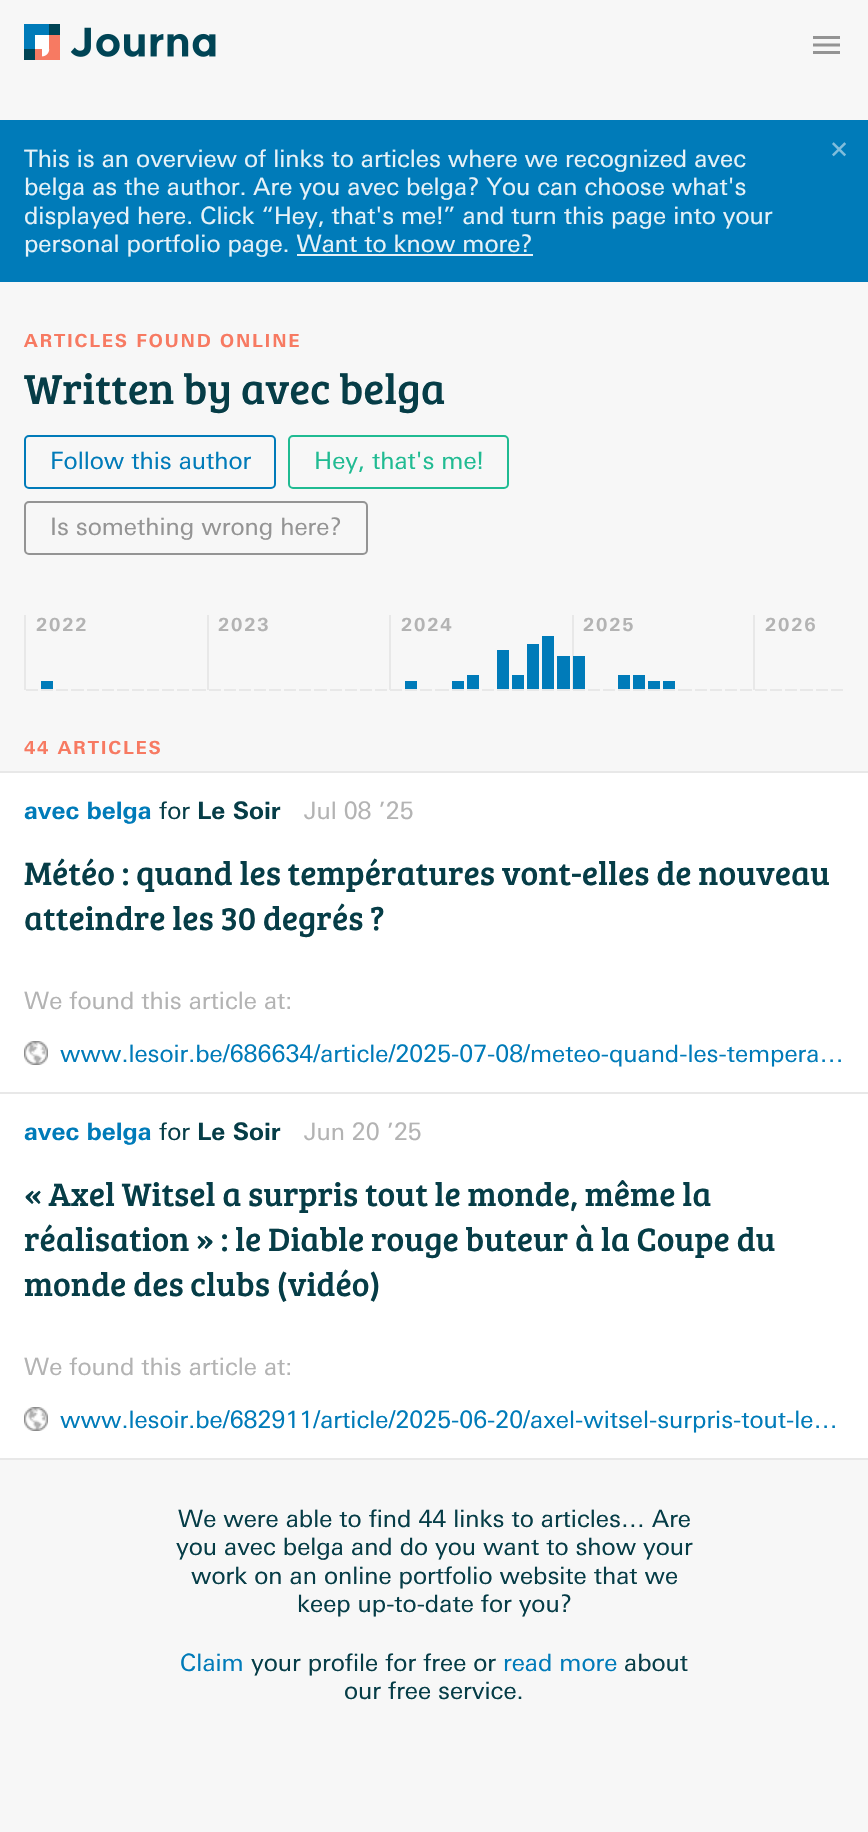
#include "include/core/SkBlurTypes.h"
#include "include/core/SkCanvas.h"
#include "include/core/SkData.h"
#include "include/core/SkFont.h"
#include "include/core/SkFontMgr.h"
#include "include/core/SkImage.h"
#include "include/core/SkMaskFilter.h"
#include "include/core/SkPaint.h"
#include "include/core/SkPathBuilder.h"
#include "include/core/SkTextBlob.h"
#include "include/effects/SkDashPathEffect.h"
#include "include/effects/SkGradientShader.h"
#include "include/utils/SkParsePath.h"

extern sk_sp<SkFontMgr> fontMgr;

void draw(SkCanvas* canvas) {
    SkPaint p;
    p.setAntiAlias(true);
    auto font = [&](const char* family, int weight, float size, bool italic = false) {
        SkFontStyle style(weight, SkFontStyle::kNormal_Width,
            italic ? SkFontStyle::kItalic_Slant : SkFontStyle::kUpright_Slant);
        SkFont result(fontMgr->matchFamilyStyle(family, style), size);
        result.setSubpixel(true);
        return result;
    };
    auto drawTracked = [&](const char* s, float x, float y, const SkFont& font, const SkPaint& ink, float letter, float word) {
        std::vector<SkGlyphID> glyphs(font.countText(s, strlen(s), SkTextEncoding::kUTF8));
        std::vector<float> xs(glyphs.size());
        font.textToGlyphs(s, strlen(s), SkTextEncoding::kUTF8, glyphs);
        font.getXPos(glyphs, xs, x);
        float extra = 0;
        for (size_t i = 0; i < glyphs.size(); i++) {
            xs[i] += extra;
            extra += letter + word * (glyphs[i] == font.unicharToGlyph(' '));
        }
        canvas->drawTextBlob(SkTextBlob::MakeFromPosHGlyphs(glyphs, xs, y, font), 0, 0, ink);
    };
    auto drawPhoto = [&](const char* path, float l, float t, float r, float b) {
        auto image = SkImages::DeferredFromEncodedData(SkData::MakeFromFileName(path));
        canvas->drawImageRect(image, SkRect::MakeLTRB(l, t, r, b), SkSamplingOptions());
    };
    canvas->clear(0xFFF7F7F7);
    drawPhoto("media/1.png", 24, 24, 216, 60);
    drawPhoto("media/2.png", 813, 36, 840, 54);
    p.setColor(0xFF007BB9);
    canvas->drawRect(SkRect::MakeLTRB(0, 120, 868, 282), p);
    auto font1 = font("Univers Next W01", 400, 24);
    p.setColor(0xFFE6F2F8);
    {
        const struct { const char* s; float x, y; } items[] = {
            {"This is an overview of links to articles where we recognized avec", 24, 167},
            {"belga as the author. Are you avec belga? You can choose what's", 24, 195},
            {"displayed here. Click “Hey, that's me!” and turn this page into your", 24, 224},
            {"personal portfolio page. Want to know more?", 24, 252},
        };
        for (auto [s, x, y] : items) {
            canvas->drawString(s, x, y, font1, p);
        }
    }
    canvas->drawRect(SkRect::MakeLTRB(297, 254, 533, 256), p);
    auto font2 = font("DejaVu Sans", 400, 24);
    p.setColor(0xFF80BDDC);
    canvas->drawString("✕", 829, 158, font2, p);
    auto font3 = font("Univers Next W01", 700, 18);
    p.setColor(0xFFF77A62);
    drawTracked("ARTICLES FOUND ONLINE", 24, 347, font3, p, 1.8f, 0);
    auto font4 = font("Bree Serif", 400, 43.25f);
    p.setColor(0xFF063D47);
    canvas->drawString("Written by avec belga", 24, 404, font4, p);
    p.setStyle(SkPaint::kStroke_Style);
    p.setStrokeWidth(2);
    p.setColor(0xFF007BB9);
    canvas->drawRoundRect(SkRect::MakeLTRB(25, 436, 275, 488), 4, 4, p);
    p.setStyle(SkPaint::kFill_Style);
    canvas->drawString("Follow this author", 50, 469, font1, p);
    p.setStyle(SkPaint::kStroke_Style);
    p.setColor(0xFF20BB92);
    canvas->drawRoundRect(SkRect::MakeLTRB(289, 436, 508, 488), 4, 4, p);
    p.setStyle(SkPaint::kFill_Style);
    canvas->drawString("Hey, that's me!", 314, 469, font1, p);
    p.setStyle(SkPaint::kStroke_Style);
    p.setColor(0xFF949494);
    canvas->drawRoundRect(SkRect::MakeLTRB(25, 502, 367, 554), 4, 4, p);
    p.setStyle(SkPaint::kFill_Style);
    canvas->drawString("Is something wrong here?", 50, 535, font1, p);
    p.setColor(0xFFE8E8E8);
    canvas->drawRect(SkRect::MakeLTRB(24, 615, 26, 690), p);
    p.setColor(0xFFB3B3B3);
    drawTracked("2022", 36, 631, font3, p, 1.8f, 0);
    p.setColor(0xFFE8E8E8);
    canvas->drawRect(SkRect::MakeLTRB(207, 615, 209, 690), p);
    p.setColor(0xFFB3B3B3);
    drawTracked("2023", 218, 631, font3, p, 1.8f, 0);
    p.setColor(0xFFE8E8E8);
    canvas->drawRect(SkRect::MakeLTRB(389, 615, 391, 690), p);
    p.setColor(0xFFB3B3B3);
    drawTracked("2024", 401, 631, font3, p, 1.8f, 0);
    p.setColor(0xFFE8E8E8);
    canvas->drawRect(SkRect::MakeLTRB(572, 615, 574, 690), p);
    p.setColor(0xFFB3B3B3);
    drawTracked("2025", 583, 631, font3, p, 1.8f, 0);
    p.setColor(0xFFE8E8E8);
    canvas->drawRect(SkRect::MakeLTRB(753, 615, 755, 690), p);
    p.setColor(0xFFB3B3B3);
    drawTracked("2026", 765, 631, font3, p, 1.8f, 0);
    {
        const struct { float l, t, r, b; SkColor color; } items[] = {
            {26, 689, 38, 691, 0xFFE8E8E8},
            {41, 689, 53, 691, 0xFFE8E8E8},
            {41, 681, 53, 689, 0xFF007BB9},
            {56, 689, 68, 691, 0xFFE8E8E8},
            {71, 689, 84, 691, 0xFFE8E8E8},
            {87, 689, 99, 691, 0xFFE8E8E8},
            {102, 689, 114, 691, 0xFFE8E8E8},
            {117, 689, 129, 691, 0xFFE8E8E8},
            {132, 689, 144, 691, 0xFFE8E8E8},
            {147, 689, 159, 691, 0xFFE8E8E8},
            {162, 689, 174, 691, 0xFFE8E8E8},
            {177, 689, 189, 691, 0xFFE8E8E8},
            {192, 689, 206, 691, 0xFFE8E8E8},
            {209, 689, 221, 691, 0xFFE8E8E8},
            {224, 689, 236, 691, 0xFFE8E8E8},
            {239, 689, 251, 691, 0xFFE8E8E8},
            {254, 689, 266, 691, 0xFFE8E8E8},
            {269, 689, 281, 691, 0xFFE8E8E8},
            {284, 689, 296, 691, 0xFFE8E8E8},
            {299, 689, 311, 691, 0xFFE8E8E8},
            {314, 689, 327, 691, 0xFFE8E8E8},
            {330, 689, 342, 691, 0xFFE8E8E8},
            {345, 689, 357, 691, 0xFFE8E8E8},
            {360, 689, 372, 691, 0xFFE8E8E8},
            {375, 689, 387, 691, 0xFFE8E8E8},
            {390, 689, 402, 691, 0xFFE8E8E8},
            {405, 689, 417, 691, 0xFFE8E8E8},
            {405, 681, 417, 689, 0xFF007BB9},
            {420, 689, 432, 691, 0xFFE8E8E8},
            {435, 689, 449, 691, 0xFFE8E8E8},
            {452, 689, 464, 691, 0xFFE8E8E8},
            {452, 681, 464, 689, 0xFF007BB9},
            {467, 689, 479, 691, 0xFFE8E8E8},
            {467, 675, 479, 689, 0xFF007BB9},
            {482, 689, 494, 691, 0xFFE8E8E8},
            {497, 689, 509, 691, 0xFFE8E8E8},
            {497, 650, 509, 689, 0xFF007BB9},
            {512, 689, 524, 691, 0xFFE8E8E8},
            {512, 675, 524, 689, 0xFF007BB9},
            {527, 689, 539, 691, 0xFFE8E8E8},
            {527, 644, 539, 689, 0xFF007BB9},
            {542, 689, 554, 691, 0xFFE8E8E8},
            {542, 636, 554, 689, 0xFF007BB9},
            {557, 689, 570, 691, 0xFFE8E8E8},
            {557, 656, 570, 689, 0xFF007BB9},
            {573, 689, 585, 691, 0xFFE8E8E8},
            {573, 656, 585, 689, 0xFF007BB9},
            {588, 689, 600, 691, 0xFFE8E8E8},
            {603, 689, 615, 691, 0xFFE8E8E8},
            {618, 689, 630, 691, 0xFFE8E8E8},
            {618, 675, 630, 689, 0xFF007BB9},
            {633, 689, 645, 691, 0xFFE8E8E8},
            {633, 675, 645, 689, 0xFF007BB9},
            {648, 689, 660, 691, 0xFFE8E8E8},
            {648, 681, 660, 689, 0xFF007BB9},
            {663, 689, 675, 691, 0xFFE8E8E8},
            {663, 681, 675, 689, 0xFF007BB9},
            {678, 689, 692, 691, 0xFFE8E8E8},
            {695, 689, 707, 691, 0xFFE8E8E8},
            {710, 689, 722, 691, 0xFFE8E8E8},
            {725, 689, 737, 691, 0xFFE8E8E8},
            {740, 689, 752, 691, 0xFFE8E8E8},
            {755, 689, 767, 691, 0xFFE8E8E8},
            {770, 689, 782, 691, 0xFFE8E8E8},
            {785, 689, 797, 691, 0xFFE8E8E8},
            {800, 689, 813, 691, 0xFFE8E8E8},
            {816, 689, 828, 691, 0xFFE8E8E8},
            {831, 689, 843, 691, 0xFFE8E8E8},
        };
        for (auto [l, t, r, b, color] : items) {
            p.setColor(color);
            canvas->drawRect(SkRect::MakeLTRB(l, t, r, b), p);
        }
    }
    p.setColor(0xFFF77A62);
    drawTracked("44 ARTICLES", 24, 754, font3, p, 1.8f, 0);
    p.setColor(0xFFFFFFFF);
    canvas->drawRect(SkRect::MakeLTRB(0, 773, 868, 1092), p);
    p.setColor(0xFFE8E8E8);
    canvas->drawRect(SkRect::MakeLTRB(0, 771, 868, 773), p);
    auto font5 = font("Univers Next W01", 700, 24);
    p.setColor(0xFF007BB9);
    canvas->drawString("avec belga", 24, 819, font5, p);
    p.setColor(0xFF063D47);
    canvas->drawString("for", 159, 819, font1, p);
    canvas->drawString("Le Soir", 197, 819, font5, p);
    p.setColor(0xFFB3B3B3);
    canvas->drawString("Jul 08 ’25", 304, 819, font1, p);
    auto font6 = font("Bree Serif", 400, 33.6f);
    p.setColor(0xFF063D47);
    canvas->drawString("Météo : quand les températures vont-elles de nouveau", 24, 885, font6, p);
    canvas->drawString("atteindre les 30 degrés ?", 24, 930, font6, p);
    p.setColor(0xFFB3B3B3);
    canvas->drawString("We found this article at:", 24, 1009, font1, p);
    drawPhoto("media/3.png", 24, 1041, 48, 1065);
    p.setColor(0xFF007BB9);
    canvas->drawString("www.lesoir.be/686634/article/2025-07-08/meteo-quand-les-tempera…", 60, 1062, font1, p);
    {
        const struct { float l, t, r, b; SkColor color; } items[] = {
            {0, 1094, 868, 1458, 0xFFFFFFFF},
            {0, 1092, 868, 1094, 0xFFE8E8E8},
            {0, 1458, 868, 1460, 0xFFE8E8E8},
        };
        for (auto [l, t, r, b, color] : items) {
            p.setColor(color);
            canvas->drawRect(SkRect::MakeLTRB(l, t, r, b), p);
        }
    }
    p.setColor(0xFF007BB9);
    canvas->drawString("avec belga", 24, 1140, font5, p);
    p.setColor(0xFF063D47);
    canvas->drawString("for", 159, 1140, font1, p);
    canvas->drawString("Le Soir", 197, 1140, font5, p);
    p.setColor(0xFFB3B3B3);
    canvas->drawString("Jun 20 ’25", 304, 1140, font1, p);
    p.setColor(0xFF063D47);
    {
        const struct { const char* s; float x, y; } items[] = {
            {"« Axel Witsel a surpris tout le monde, même la", 24, 1206},
            {"réalisation » : le Diable rouge buteur à la Coupe du", 24, 1251},
            {"monde des clubs (vidéo)", 24, 1296},
        };
        for (auto [s, x, y] : items) {
            canvas->drawString(s, x, y, font6, p);
        }
    }
    p.setColor(0xFFB3B3B3);
    canvas->drawString("We found this article at:", 24, 1375, font1, p);
    drawPhoto("media/3.png", 24, 1407, 48, 1431);
    p.setColor(0xFF007BB9);
    canvas->drawString("www.lesoir.be/682911/article/2025-06-20/axel-witsel-surpris-tout-le…", 60, 1428, font1, p);
    p.setColor(0xFF063D47);
    {
        const struct { const char* s; float x, y; } items[] = {
            {"We were able to find 44 links to articles… Are", 178, 1527},
            {"you avec belga and do you want to show your", 176, 1555},
            {"work on an online portfolio website that we", 191, 1584},
            {"keep up-to-date for you?", 297, 1612},
        };
        for (auto [s, x, y] : items) {
            canvas->drawString(s, x, y, font1, p);
        }
    }
    p.setColor(0xFF007BB9);
    canvas->drawString("Claim", 180, 1671, font1, p);
    p.setColor(0xFF063D47);
    canvas->drawString("your profile for free or", 251, 1671, font1, p);
    p.setColor(0xFF007BB9);
    canvas->drawString("read more", 503, 1671, font1, p);
    p.setColor(0xFF063D47);
    canvas->drawString("about", 624, 1671, font1, p);
    canvas->drawString("our free service.", 344, 1699, font1, p);
}
